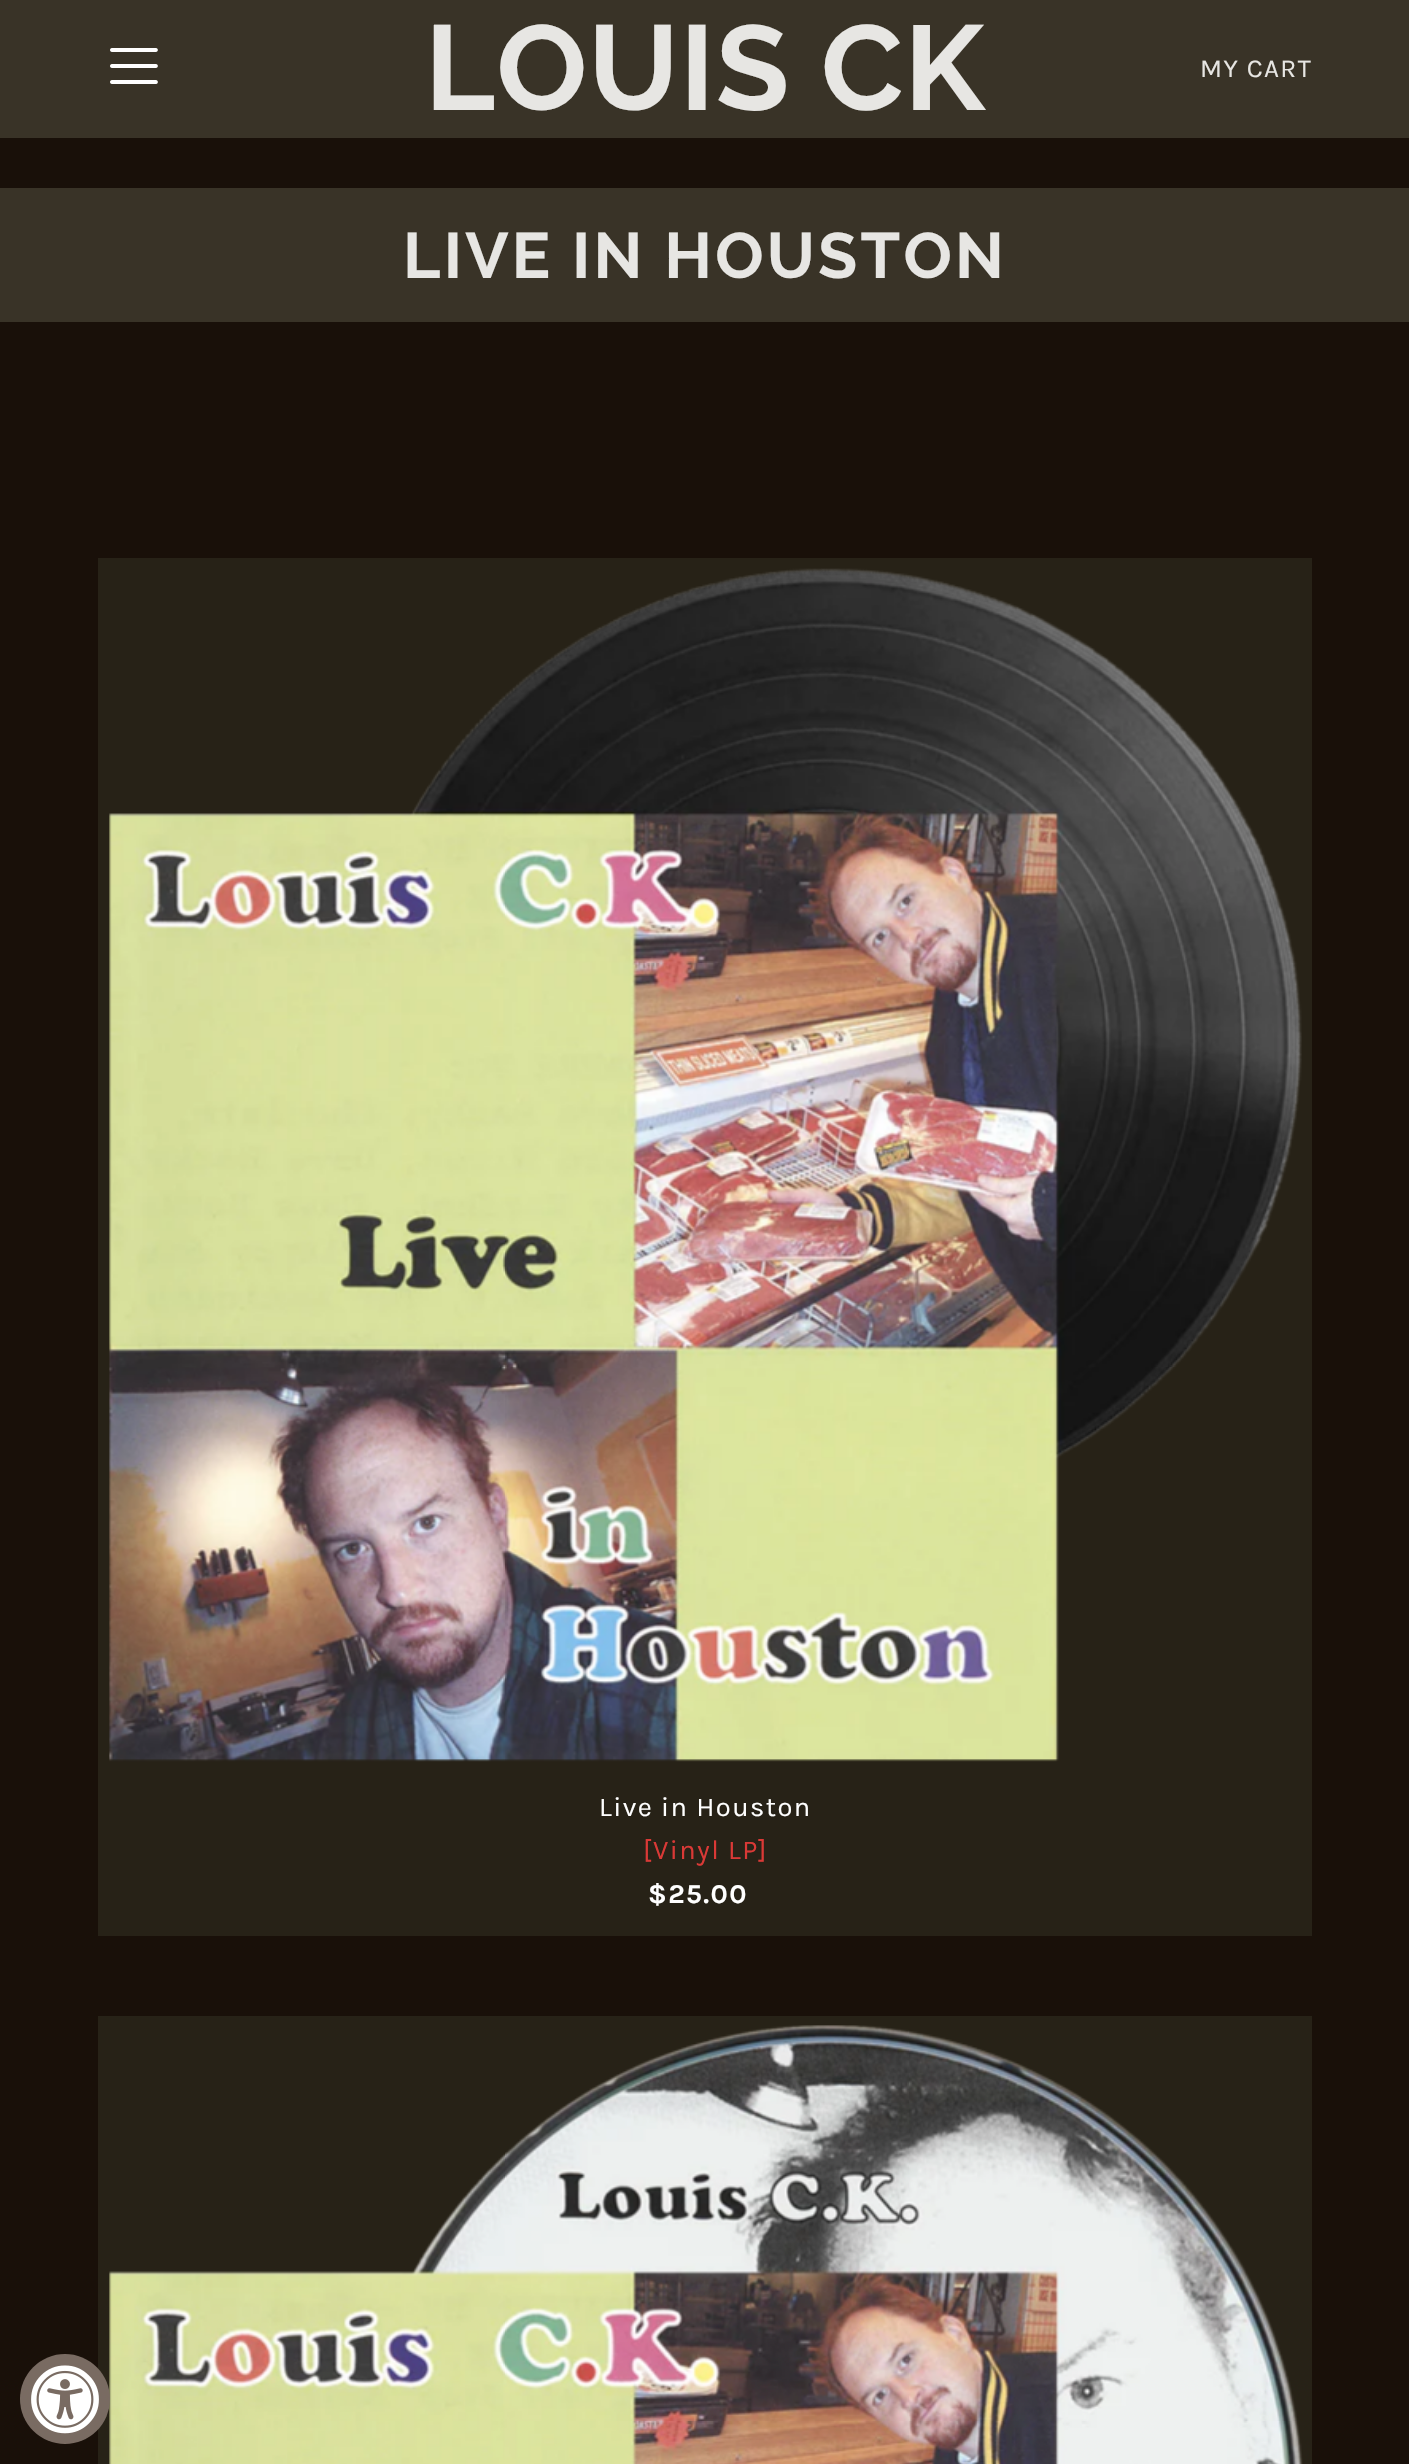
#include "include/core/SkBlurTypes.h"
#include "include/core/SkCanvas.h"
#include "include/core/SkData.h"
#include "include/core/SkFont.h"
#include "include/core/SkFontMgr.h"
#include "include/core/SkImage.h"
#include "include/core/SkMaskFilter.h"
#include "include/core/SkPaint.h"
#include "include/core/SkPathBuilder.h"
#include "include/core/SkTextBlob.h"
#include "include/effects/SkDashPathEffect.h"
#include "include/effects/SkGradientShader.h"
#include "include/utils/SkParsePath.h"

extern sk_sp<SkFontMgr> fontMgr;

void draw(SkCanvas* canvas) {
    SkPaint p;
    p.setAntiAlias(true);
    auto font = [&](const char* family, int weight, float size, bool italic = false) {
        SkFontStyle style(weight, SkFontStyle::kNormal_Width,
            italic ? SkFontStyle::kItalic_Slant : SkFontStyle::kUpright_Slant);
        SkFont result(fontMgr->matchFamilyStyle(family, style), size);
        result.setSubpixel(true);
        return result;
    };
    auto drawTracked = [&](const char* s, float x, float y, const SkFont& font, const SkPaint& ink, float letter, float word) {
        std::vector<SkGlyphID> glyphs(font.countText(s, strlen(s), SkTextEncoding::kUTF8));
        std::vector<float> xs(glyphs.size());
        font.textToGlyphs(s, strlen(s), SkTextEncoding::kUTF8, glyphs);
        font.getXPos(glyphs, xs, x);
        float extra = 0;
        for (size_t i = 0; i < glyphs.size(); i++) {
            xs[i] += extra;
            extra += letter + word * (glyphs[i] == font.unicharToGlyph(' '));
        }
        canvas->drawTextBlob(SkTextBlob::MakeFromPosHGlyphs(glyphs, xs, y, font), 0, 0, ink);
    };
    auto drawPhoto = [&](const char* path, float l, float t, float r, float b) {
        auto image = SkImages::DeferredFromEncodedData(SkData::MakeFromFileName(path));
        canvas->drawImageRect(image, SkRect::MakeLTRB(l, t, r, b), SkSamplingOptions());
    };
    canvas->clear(0xFF191009);
    p.setColor(0xFF393327);
    canvas->drawRect(SkRect::MakeLTRB(0, 0, 1409, 138), p);
    drawPhoto("media/1.png", 110, 48, 158, 84);
    auto font1 = font("Raleway", 700, 120);
    p.setColor(0xFFE7E6E3);
    drawTracked("LOUIS CK", 425, 110, font1, p, 1.4f, 0);
    auto font2 = font("Karla", 400, 26);
    drawTracked("MY CART", 1200, 77, font2, p, 1.4f, 0);
    p.setColor(0xFF393327);
    canvas->drawRect(SkRect::MakeLTRB(0, 188, 1409, 322), p);
    auto font3 = font("Raleway", 700, 64);
    p.setColor(0xFFE7E6E3);
    drawTracked("LIVE IN HOUSTON", 403, 278, font3, p, 3.25f, 0);
    p.setColor(0xFF272217);
    canvas->drawRect(SkRect::MakeLTRB(98, 558, 1312, 1936), p);
    drawPhoto("media/2.png", 109, 568, 1302, 1762);
    auto font4 = font("Karla", 400, 27.25f);
    p.setColor(0xFFFFFFFF);
    drawTracked("Live in Houston", 599, 1816, font4, p, 1.4f, 0);
    p.setColor(0xFFDA3936);
    drawTracked("[Vinyl LP]", 643, 1859, font4, p, 1.4f, 0);
    auto font5 = font("Karla", 700, 27.25f);
    p.setColor(0xFFFFFFFF);
    drawTracked("$25.00", 648, 1903, font5, p, 1.4f, 0);
    p.setColor(0xFF272217);
    canvas->drawRect(SkRect::MakeLTRB(98, 2016, 1312, 2464), p);
    drawPhoto("media/3.png", 109, 2025, 1303, 2464);
    p.setColor(0xFF796B62);
    canvas->drawCircle(65, 2399, 45, p);
    drawPhoto("media/4.png", 31, 2365, 99, 2434);
}
